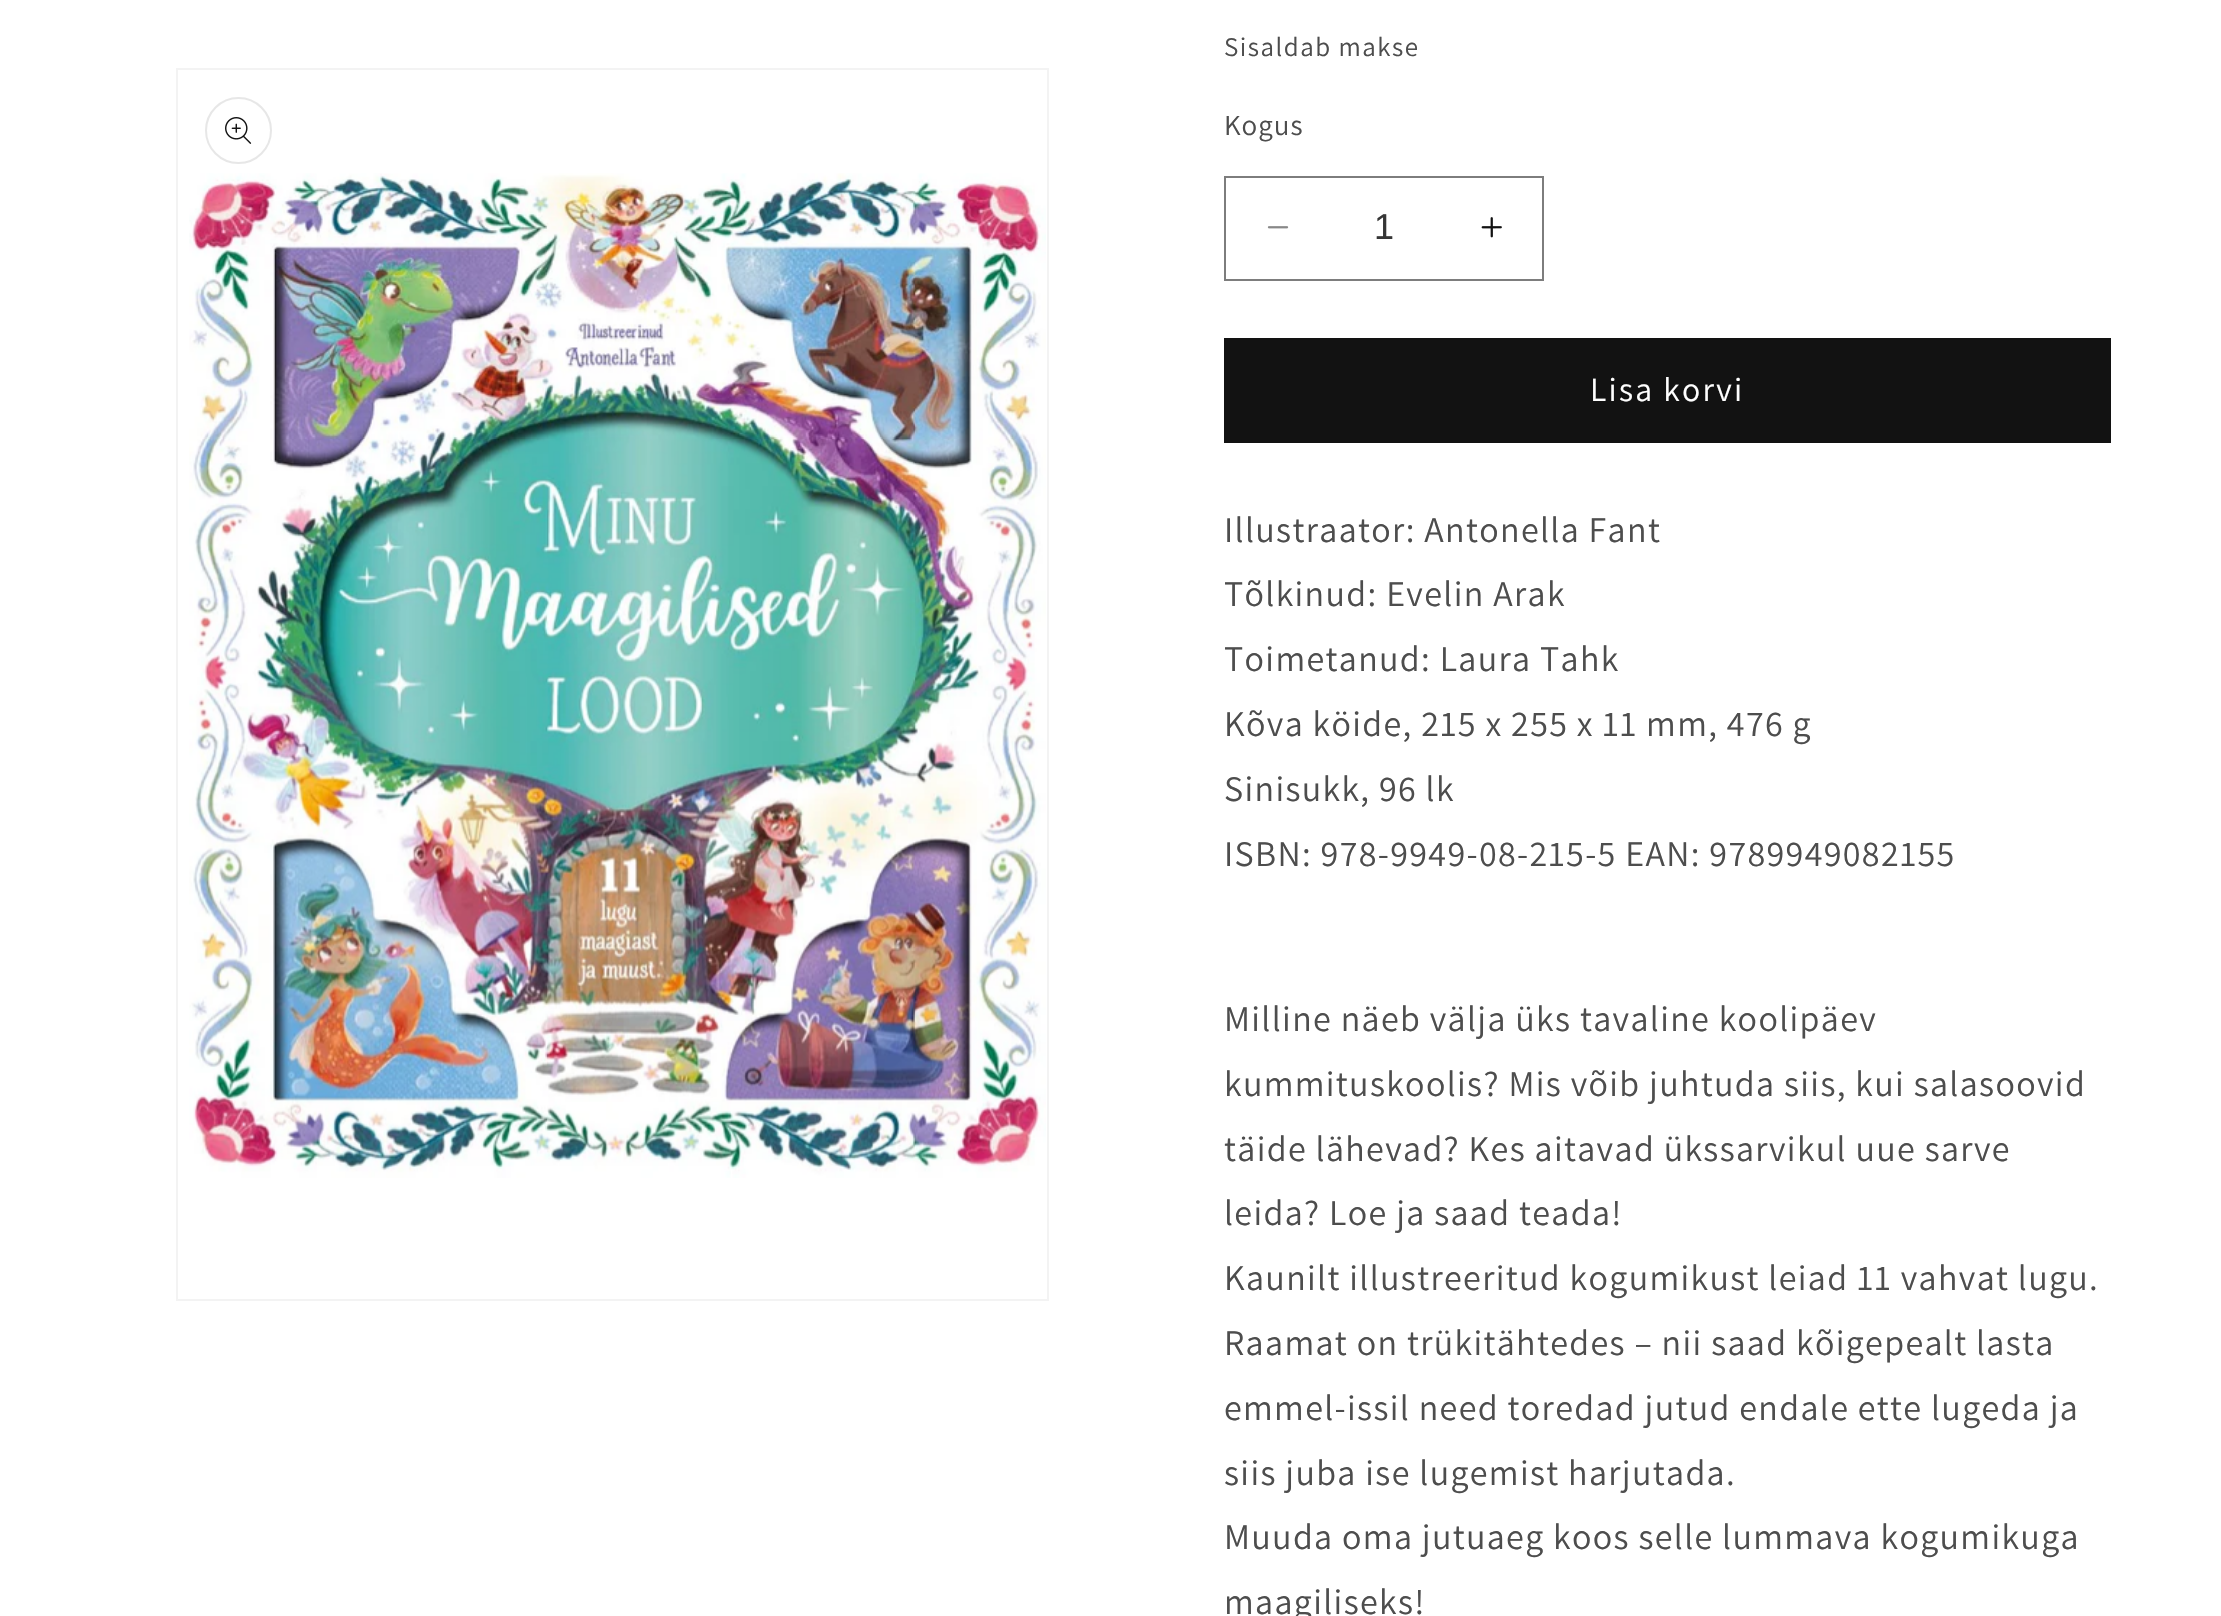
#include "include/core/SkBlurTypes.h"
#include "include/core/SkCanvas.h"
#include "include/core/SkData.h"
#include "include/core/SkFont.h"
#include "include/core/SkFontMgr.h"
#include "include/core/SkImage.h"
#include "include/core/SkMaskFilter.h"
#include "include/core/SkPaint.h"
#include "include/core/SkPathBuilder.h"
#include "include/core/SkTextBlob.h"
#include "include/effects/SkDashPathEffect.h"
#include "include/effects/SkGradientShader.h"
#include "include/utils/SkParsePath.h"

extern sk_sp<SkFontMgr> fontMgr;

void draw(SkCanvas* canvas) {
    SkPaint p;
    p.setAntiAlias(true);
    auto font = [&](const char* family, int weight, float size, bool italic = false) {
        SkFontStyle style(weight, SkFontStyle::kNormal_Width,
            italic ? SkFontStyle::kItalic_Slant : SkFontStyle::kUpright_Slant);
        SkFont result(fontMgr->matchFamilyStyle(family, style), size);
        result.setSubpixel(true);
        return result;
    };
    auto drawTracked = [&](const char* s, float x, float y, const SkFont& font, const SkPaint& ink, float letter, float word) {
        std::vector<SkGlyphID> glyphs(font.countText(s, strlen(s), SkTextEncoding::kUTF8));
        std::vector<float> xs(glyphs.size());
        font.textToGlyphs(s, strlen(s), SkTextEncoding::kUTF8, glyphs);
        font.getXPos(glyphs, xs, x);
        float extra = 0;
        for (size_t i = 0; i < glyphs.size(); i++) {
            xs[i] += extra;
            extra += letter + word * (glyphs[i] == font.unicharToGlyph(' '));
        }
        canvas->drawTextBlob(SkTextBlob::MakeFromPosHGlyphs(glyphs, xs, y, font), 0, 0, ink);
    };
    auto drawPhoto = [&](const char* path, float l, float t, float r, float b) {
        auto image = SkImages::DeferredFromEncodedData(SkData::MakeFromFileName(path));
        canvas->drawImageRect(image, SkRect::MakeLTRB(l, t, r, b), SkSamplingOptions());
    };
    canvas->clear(0xFFFFFFFF);
    p.setStyle(SkPaint::kStroke_Style);
    p.setStrokeWidth(2);
    p.setColor(0xFFF3F3F3);
    canvas->drawRect(SkRect::MakeLTRB(177, 69, 1048, 1300), p);
    p.setColor(0xFFE7E7E7);
    canvas->drawCircle(238.5f, 130.5f, 32.5f, p);
    drawPhoto("media/1.png", 225, 117, 252, 144);
    drawPhoto("media/2.png", 189, 173, 1046, 1178);
    auto font1 = font("Assistant", 400, 27);
    p.setStyle(SkPaint::kFill_Style);
    p.setColor(0xFF4D4D4D);
    drawTracked("Sisaldab makse", 1224, 56, font1, p, 1.5f, 0);
    auto font2 = font("Assistant", 400, 29);
    drawTracked("Kogus", 1224, 135, font2, p, 1, 0);
    drawPhoto("media/3.png", 1267, 226, 1289, 229);
    drawPhoto("media/4.png", 1481, 217, 1502, 238);
    p.setStyle(SkPaint::kStroke_Style);
    p.setColor(0xFF7D7D7D);
    canvas->drawRect(SkRect::MakeLTRB(1225, 177, 1543, 280), p);
    auto font3 = font("Liberation Sans", 400, 36);
    p.setStyle(SkPaint::kFill_Style);
    p.setColor(0xFF363636);
    canvas->drawString("1", 1374, 239, font3, p);
    p.setColor(0xFF121212);
    canvas->drawRect(SkRect::MakeLTRB(1224, 338, 2111, 443), p);
    auto font4 = font("Assistant", 400, 33.75f);
    p.setColor(0xFFFFFFFF);
    drawTracked("Lisa korvi", 1590, 401, font4, p, 2.25f, 0);
    auto font5 = font("Assistant", 400, 36);
    p.setColor(0xFF4D4D4D);
    {
        const struct { const char* s; float x, y; } items[] = {
            {"Illustraator: Antonella Fant", 1224, 542},
            {"Tõlkinud: Evelin Arak", 1224, 606},
            {"Toimetanud: Laura Tahk", 1224, 671},
            {"Kõva köide, 215 x 255 x 11 mm, 476 g", 1224, 736},
            {"Sinisukk, 96 lk", 1224, 801},
            {"ISBN: 978-9949-08-215-5 EAN: 9789949082155", 1224, 866},
            {"Milline näeb välja üks tavaline koolipäev", 1224, 1031},
            {"kummituskoolis? Mis võib juhtuda siis, kui salasoovid", 1224, 1096},
            {"täide lähevad? Kes aitavad ükssarvikul uue sarve", 1224, 1161},
            {"leida? Loe ja saad teada!", 1224, 1225},
            {"Kaunilt illustreeritud kogumikust leiad 11 vahvat lugu.", 1224, 1290},
            {"Raamat on trükitähtedes – nii saad kõigepealt lasta", 1224, 1355},
            {"emmel-issil need toredad jutud endale ette lugeda ja", 1224, 1420},
            {"siis juba ise lugemist harjutada.", 1224, 1485},
            {"Muuda oma jutuaeg koos selle lummava kogumikuga", 1224, 1549},
            {"maagiliseks!", 1224, 1614},
        };
        for (auto [s, x, y] : items) {
            drawTracked(s, x, y, font5, p, 1.35f, 0);
        }
    }
}
